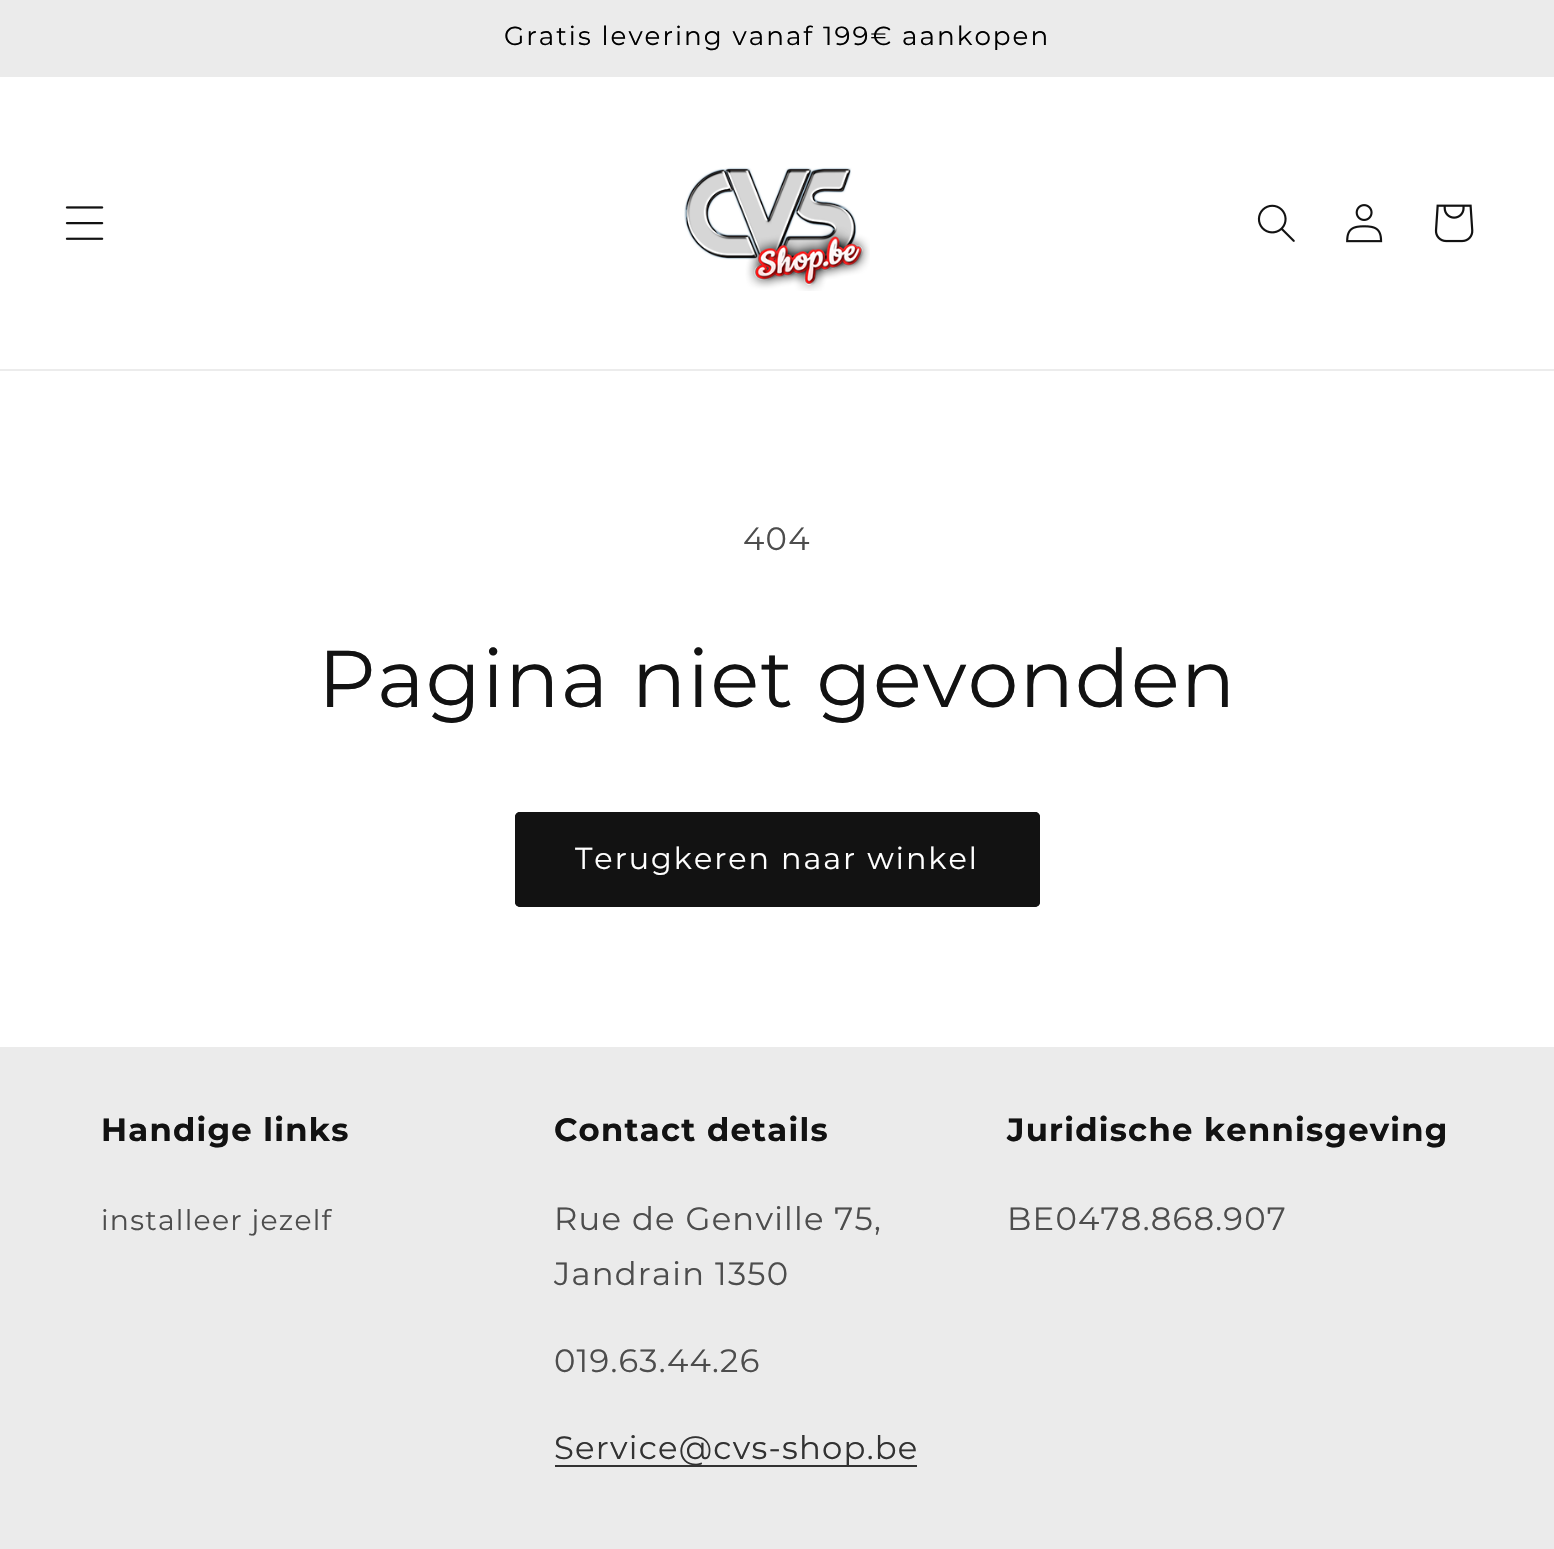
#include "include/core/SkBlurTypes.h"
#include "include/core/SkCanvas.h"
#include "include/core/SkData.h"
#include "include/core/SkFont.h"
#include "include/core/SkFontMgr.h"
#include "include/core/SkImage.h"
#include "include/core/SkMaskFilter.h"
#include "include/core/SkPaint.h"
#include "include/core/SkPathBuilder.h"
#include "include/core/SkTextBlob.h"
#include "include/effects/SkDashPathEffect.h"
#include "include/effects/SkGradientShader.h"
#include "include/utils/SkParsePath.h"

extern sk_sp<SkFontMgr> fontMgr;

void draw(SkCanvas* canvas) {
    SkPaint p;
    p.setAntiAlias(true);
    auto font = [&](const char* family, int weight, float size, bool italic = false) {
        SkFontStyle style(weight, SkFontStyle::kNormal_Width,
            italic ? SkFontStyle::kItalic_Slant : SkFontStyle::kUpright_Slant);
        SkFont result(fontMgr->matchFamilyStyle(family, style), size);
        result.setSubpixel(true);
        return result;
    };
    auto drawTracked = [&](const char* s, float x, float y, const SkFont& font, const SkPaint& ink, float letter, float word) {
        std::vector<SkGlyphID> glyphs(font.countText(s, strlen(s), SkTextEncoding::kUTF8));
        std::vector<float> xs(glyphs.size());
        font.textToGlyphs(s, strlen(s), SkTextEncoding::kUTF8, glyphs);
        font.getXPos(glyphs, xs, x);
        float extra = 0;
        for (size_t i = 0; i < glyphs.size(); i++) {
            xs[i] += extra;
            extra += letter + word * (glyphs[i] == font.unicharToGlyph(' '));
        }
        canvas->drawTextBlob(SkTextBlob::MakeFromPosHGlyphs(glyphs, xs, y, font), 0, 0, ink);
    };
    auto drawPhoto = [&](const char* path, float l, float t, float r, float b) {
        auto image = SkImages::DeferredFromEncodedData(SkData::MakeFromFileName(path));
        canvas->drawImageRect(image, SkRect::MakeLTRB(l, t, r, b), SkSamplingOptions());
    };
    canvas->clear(0xFFFFFFFF);
    p.setColor(0xFFEBEBEB);
    canvas->drawRect(SkRect::MakeLTRB(0, 0, 1554, 77), p);
    auto font1 = font("Montserrat", 400, 26.2f);
    p.setColor(0xFF000000);
    drawTracked("Gratis levering vanaf 199€ aankopen", 504, 45, font1, p, 2, 0);
    p.setColor(0xFFECECEC);
    canvas->drawRect(SkRect::MakeLTRB(0, 369, 1554, 371), p);
    drawPhoto("media/1.png", 65, 206, 104, 240);
    drawPhoto("media/2.png", 684, 167, 870, 291);
    drawPhoto("media/3.png", 1257, 204, 1295, 242);
    drawPhoto("media/4.png", 1346, 204, 1383, 243);
    drawPhoto("media/5.png", 1434, 204, 1474, 243);
    auto font2 = font("Montserrat", 400, 32.25f);
    p.setColor(0xFF4D4D4D);
    drawTracked("404", 743, 550, font2, p, 1.25f, 0);
    auto font3 = font("Montserrat", 400, 80.5f);
    p.setColor(0xFF121212);
    drawTracked("Pagina niet gevonden", 318, 707, font3, p, 1.25f, 0);
    canvas->drawRoundRect(SkRect::MakeLTRB(515, 812, 1040, 907), 5, 5, p);
    p.setStyle(SkPaint::kStroke_Style);
    p.setStrokeWidth(2);
    canvas->drawRoundRect(SkRect::MakeLTRB(516, 813, 1039, 906), 4, 4, p);
    auto font4 = font("Montserrat", 400, 30.25f);
    p.setStyle(SkPaint::kFill_Style);
    p.setColor(0xFFFFFFFF);
    drawTracked("Terugkeren naar winkel", 575, 869, font4, p, 2, 0);
    p.setColor(0xFFEBEBEB);
    canvas->drawRect(SkRect::MakeLTRB(0, 1047, 1554, 1549), p);
    auto font5 = font("Montserrat", 700, 32.25f);
    p.setColor(0xFF121212);
    drawTracked("Handige links", 101, 1141, font5, p, 1.25f, 0);
    auto font6 = font("Montserrat", 400, 28.25f);
    p.setColor(0xFF4D4D4D);
    drawTracked("installeer jezelf", 101, 1230, font6, p, 1.25f, 0);
    p.setColor(0xFF121212);
    drawTracked("Contact details", 554, 1141, font5, p, 1.25f, 0);
    p.setColor(0xFF4D4D4D);
    {
        const struct { const char* s; float x, y; } items[] = {
            {"Rue de Genville 75,", 554, 1230},
            {"Jandrain 1350", 554, 1285},
            {"019.63.44.26", 554, 1372},
        };
        for (auto [s, x, y] : items) {
            drawTracked(s, x, y, font2, p, 1.25f, 0);
        }
    }
    p.setColor(0xFF333333);
    canvas->drawRect(SkRect::MakeLTRB(555, 1465, 917, 1467), p);
    p.setColor(0xFF323232);
    drawTracked("Service@cvs-shop.be", 554, 1459, font2, p, 1.25f, 0);
    p.setColor(0xFF121212);
    drawTracked("Juridische kennisgeving", 1007, 1141, font5, p, 1.25f, 0);
    p.setColor(0xFF4D4D4D);
    drawTracked("BE0478.868.907", 1007, 1230, font2, p, 1.25f, 0);
}
